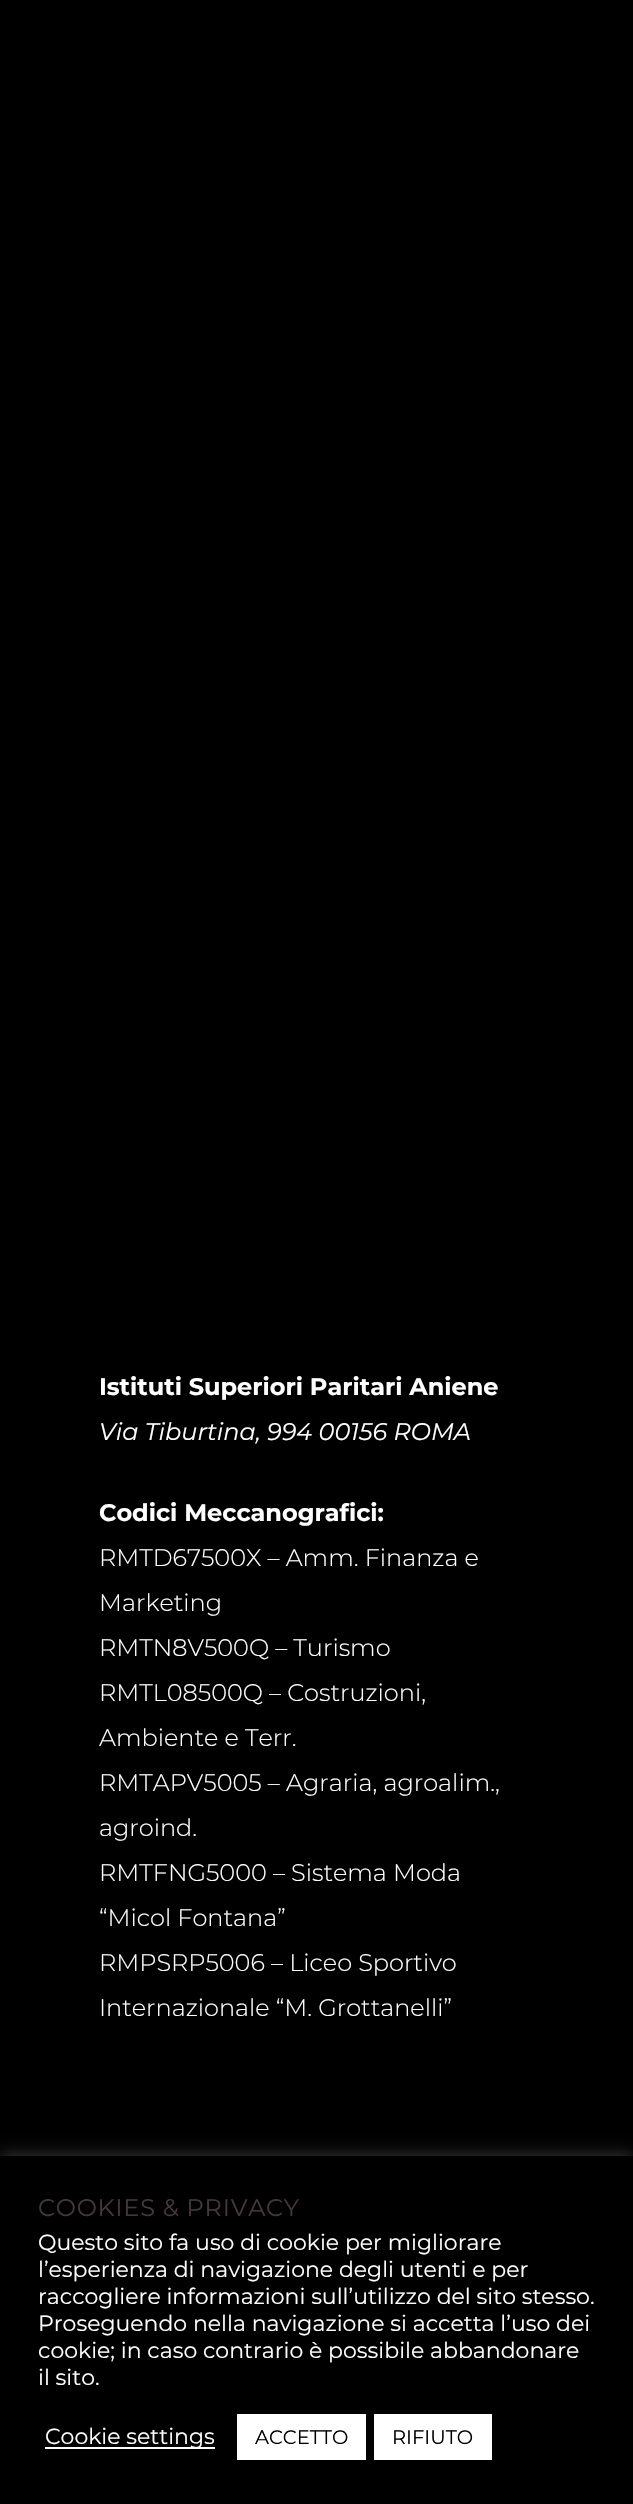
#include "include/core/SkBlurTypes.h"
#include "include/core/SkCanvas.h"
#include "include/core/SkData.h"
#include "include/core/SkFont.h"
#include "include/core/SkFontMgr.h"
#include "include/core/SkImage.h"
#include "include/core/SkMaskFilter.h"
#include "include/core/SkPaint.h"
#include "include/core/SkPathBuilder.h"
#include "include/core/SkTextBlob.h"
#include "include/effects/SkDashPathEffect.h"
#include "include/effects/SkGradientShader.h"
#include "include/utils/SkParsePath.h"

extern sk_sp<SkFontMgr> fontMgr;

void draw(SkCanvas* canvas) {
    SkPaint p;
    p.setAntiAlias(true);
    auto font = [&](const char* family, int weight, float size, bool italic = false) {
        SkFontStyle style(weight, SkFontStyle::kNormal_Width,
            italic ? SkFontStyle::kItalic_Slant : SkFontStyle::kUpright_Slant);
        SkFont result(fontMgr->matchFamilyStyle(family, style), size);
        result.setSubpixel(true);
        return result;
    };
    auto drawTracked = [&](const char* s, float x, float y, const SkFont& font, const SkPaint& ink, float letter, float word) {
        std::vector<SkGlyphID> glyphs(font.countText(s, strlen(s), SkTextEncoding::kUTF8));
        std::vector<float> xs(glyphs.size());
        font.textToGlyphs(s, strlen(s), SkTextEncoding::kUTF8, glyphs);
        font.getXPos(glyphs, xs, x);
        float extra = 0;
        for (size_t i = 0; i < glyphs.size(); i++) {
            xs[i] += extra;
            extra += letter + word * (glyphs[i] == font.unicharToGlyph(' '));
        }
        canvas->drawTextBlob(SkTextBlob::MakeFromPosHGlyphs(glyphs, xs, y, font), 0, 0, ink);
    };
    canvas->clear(0xFF000000);
    auto font1 = font("Montserrat", 700, 24);
    p.setColor(0xFFFFFFFF);
    canvas->drawString("Istituti Superiori Paritari Aniene", 99, 1395, font1, p);
    auto font2 = font("Montserrat", 100, 24, true);
    canvas->drawString("Via Tiburtina, 994 00156 ROMA", 99, 1440, font2, p);
    canvas->drawString("Codici Meccanografici:", 99, 1521, font1, p);
    auto font3 = font("Montserrat", 300, 24);
    {
        const struct { const char* s; float x, y; } items[] = {
            {"RMTD67500X – Amm. Finanza e", 99, 1566},
            {"Marketing", 99, 1611},
            {"RMTN8V500Q – Turismo", 99, 1656},
            {"RMTL08500Q – Costruzioni,", 99, 1701},
            {"Ambiente e Terr.", 99, 1746},
            {"RMTAPV5005 – Agraria, agroalim.,", 99, 1791},
            {"agroind.", 99, 1836},
            {"RMTFNG5000 – Sistema Moda", 99, 1881},
            {"“Micol Fontana”", 99, 1926},
            {"RMPSRP5006 – Liceo Sportivo", 99, 1971},
            {"Internazionale “M. Grottanelli”", 99, 2016},
        };
        for (auto [s, x, y] : items) {
            canvas->drawString(s, x, y, font3, p);
        }
    }
    p.setColor(0x4DACABAB);
    p.setMaskFilter(SkMaskFilter::MakeBlur(kNormal_SkBlurStyle, 7.5f));
    canvas->drawRect(SkRect::MakeLTRB(0, 2154, 633, 2504), p);
    p.setMaskFilter(nullptr);
    p.setColor(0xFF000000);
    canvas->drawRect(SkRect::MakeLTRB(0, 2156, 633, 2504), p);
    auto font4 = font("Montserrat", 400, 24);
    p.setColor(0xFF463839);
    drawTracked("COOKIES & PRIVACY", 38, 2216, font4, p, 0.75f, 0);
    auto font5 = font("Montserrat", 400, 22);
    p.setColor(0xFFFFFFFF);
    {
        const struct { const char* s; float x, y; } items[] = {
            {"Questo sito fa uso di cookie per migliorare", 38, 2250},
            {"l’esperienza di navigazione degli utenti e per", 38, 2277},
            {"raccogliere informazioni sull’utilizzo del sito stesso.", 38, 2304},
            {"Proseguendo nella navigazione si accetta l’uso dei", 38, 2331},
            {"cookie; in caso contrario è possibile abbandonare", 38, 2358},
            {"il sito.", 38, 2385},
        };
        for (auto [s, x, y] : items) {
            canvas->drawString(s, x, y, font5, p);
        }
    }
    canvas->drawRect(SkRect::MakeLTRB(45, 2447, 215, 2449), p);
    canvas->drawString("Cookie settings", 45, 2444, font5, p);
    canvas->drawRect(SkRect::MakeLTRB(237, 2414, 366, 2460), p);
    auto font6 = font("Montserrat", 400, 19.5f);
    p.setColor(0xFF000000);
    canvas->drawString("ACCETTO", 255, 2444, font6, p);
    p.setColor(0xFFFFFFFF);
    canvas->drawRect(SkRect::MakeLTRB(374, 2414, 492, 2460), p);
    p.setColor(0xFF000000);
    canvas->drawString("RIFIUTO", 392, 2444, font6, p);
}
